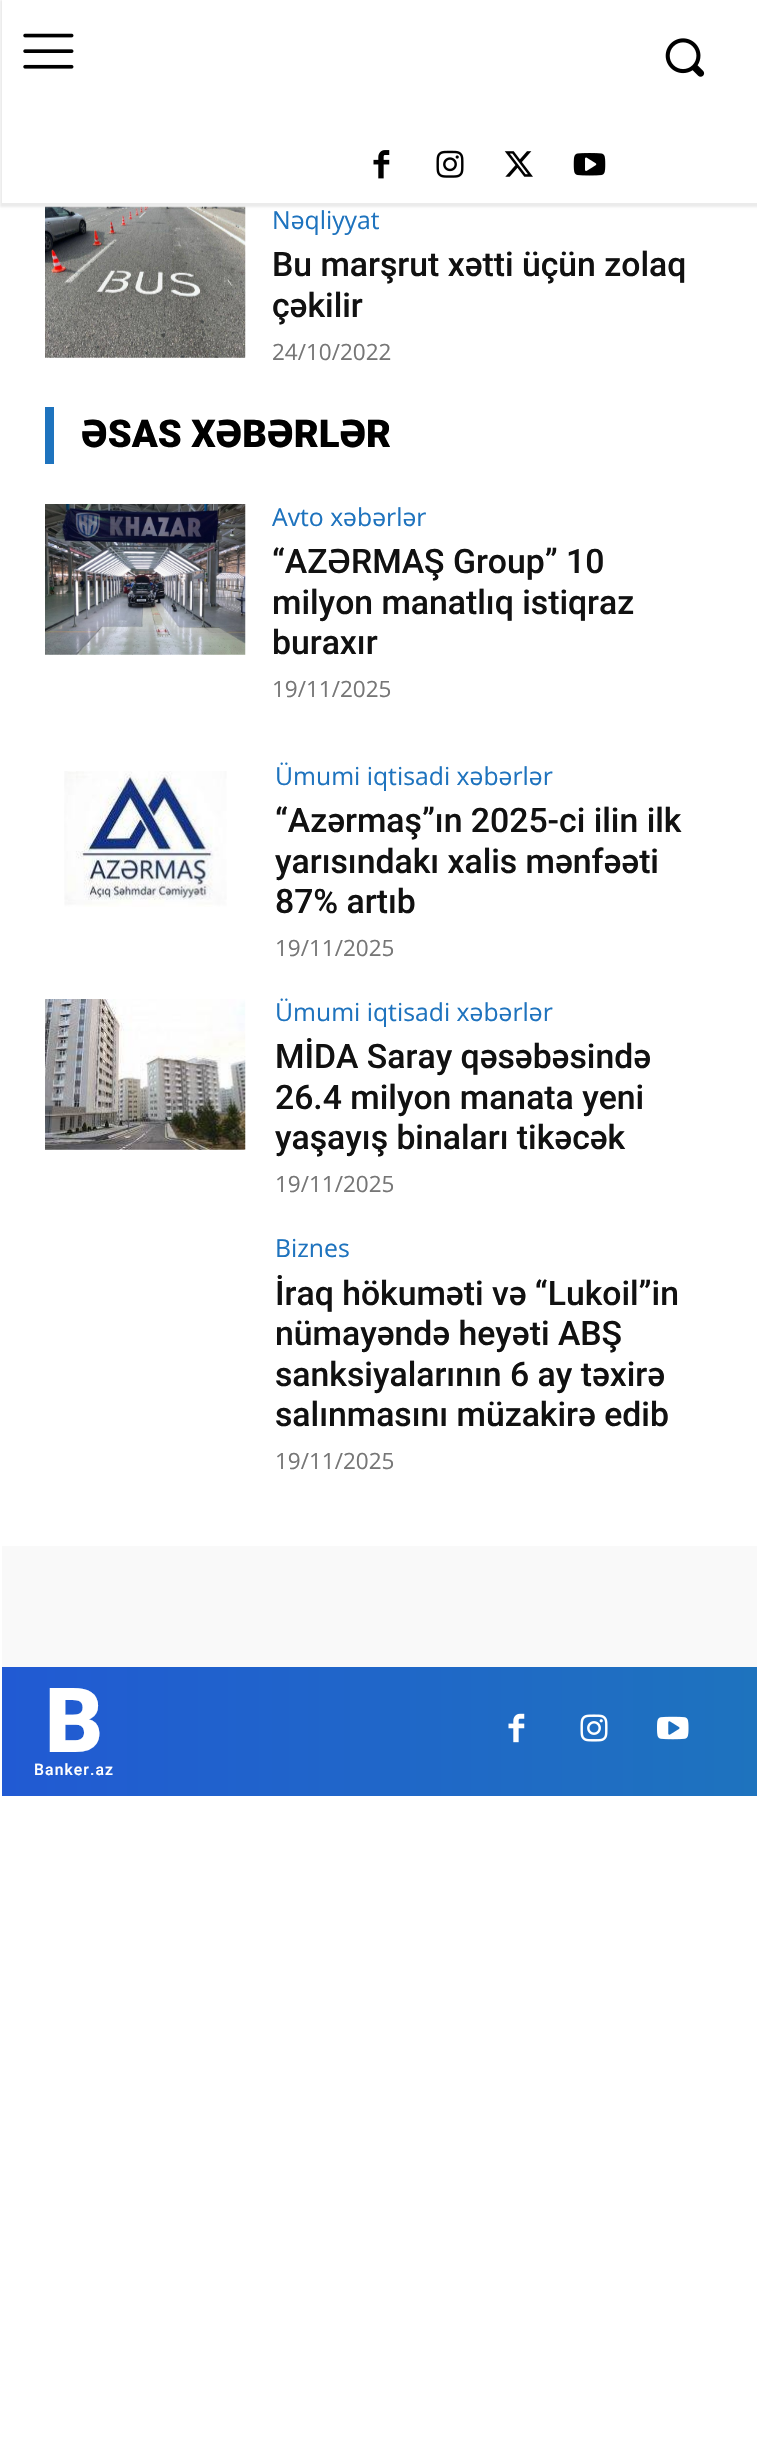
#include "include/core/SkBlurTypes.h"
#include "include/core/SkCanvas.h"
#include "include/core/SkData.h"
#include "include/core/SkFont.h"
#include "include/core/SkFontMgr.h"
#include "include/core/SkImage.h"
#include "include/core/SkMaskFilter.h"
#include "include/core/SkPaint.h"
#include "include/core/SkPathBuilder.h"
#include "include/core/SkTextBlob.h"
#include "include/effects/SkDashPathEffect.h"
#include "include/effects/SkGradientShader.h"
#include "include/utils/SkParsePath.h"

extern sk_sp<SkFontMgr> fontMgr;

void draw(SkCanvas* canvas) {
    SkPaint p;
    p.setAntiAlias(true);
    auto font = [&](const char* family, int weight, float size, bool italic = false) {
        SkFontStyle style(weight, SkFontStyle::kNormal_Width,
            italic ? SkFontStyle::kItalic_Slant : SkFontStyle::kUpright_Slant);
        SkFont result(fontMgr->matchFamilyStyle(family, style), size);
        result.setSubpixel(true);
        return result;
    };
    auto drawTracked = [&](const char* s, float x, float y, const SkFont& font, const SkPaint& ink, float letter, float word) {
        std::vector<SkGlyphID> glyphs(font.countText(s, strlen(s), SkTextEncoding::kUTF8));
        std::vector<float> xs(glyphs.size());
        font.textToGlyphs(s, strlen(s), SkTextEncoding::kUTF8, glyphs);
        font.getXPos(glyphs, xs, x);
        float extra = 0;
        for (size_t i = 0; i < glyphs.size(); i++) {
            xs[i] += extra;
            extra += letter + word * (glyphs[i] == font.unicharToGlyph(' '));
        }
        canvas->drawTextBlob(SkTextBlob::MakeFromPosHGlyphs(glyphs, xs, y, font), 0, 0, ink);
    };
    auto drawPhoto = [&](const char* path, float l, float t, float r, float b) {
        auto image = SkImages::DeferredFromEncodedData(SkData::MakeFromFileName(path));
        canvas->drawImageRect(image, SkRect::MakeLTRB(l, t, r, b), SkSamplingOptions());
    };
    canvas->clear(0xFFFFFFFF);
    drawPhoto("media/1.png", 23, 33, 74, 69);
    drawPhoto("media/2.png", 665, 38, 705, 77);
    drawPhoto("media/3.png", 373, 150, 390, 179);
    drawPhoto("media/4.png", 436, 150, 464, 178);
    drawPhoto("media/5.png", 504, 151, 533, 177);
    drawPhoto("media/6.png", 573, 153, 606, 176);
    drawPhoto("media/7.png", 45, 206, 246, 358);
    canvas->save();
    canvas->clipPath(SkPathBuilder(SkPathFillType::kEvenOdd).moveTo(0, 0).lineTo(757, 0).lineTo(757, 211).lineTo(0, 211).close().moveTo(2, 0).lineTo(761, 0).lineTo(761, 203).lineTo(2, 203).close().detach(), true);
    p.setColor(0x14000000);
    p.setMaskFilter(SkMaskFilter::MakeBlur(kNormal_SkBlurStyle, 1));
    canvas->drawRect(SkRect::MakeLTRB(0, 0, 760, 207), p);
    p.setMaskFilter(nullptr);
    canvas->restore();
    auto font1 = font("Open Sans", 400, 24.75f);
    p.setColor(0xFF1E73BE);
    canvas->drawString("Nəqliyyat", 272, 229, font1, p);
    auto font2 = font("Roboto", 500, 33.75f);
    p.setColor(0xFF111111);
    canvas->drawString("Bu marşrut xətti üçün zolaq", 272, 276, font2, p);
    canvas->drawString("çəkilir", 272, 317, font2, p);
    auto font3 = font("Open Sans", 400, 22.5f);
    p.setColor(0xFF767676);
    canvas->drawString("24/10/2022", 272, 360, font3, p);
    p.setColor(0xFF1E73BE);
    canvas->drawRect(SkRect::MakeLTRB(45, 407, 54, 464), p);
    auto font4 = font("Roboto", 900, 38.25f);
    p.setColor(0xFF000000);
    canvas->drawString("ƏSAS XƏBƏRLƏR", 81, 447, font4, p);
    drawPhoto("media/8.png", 45, 504, 246, 655);
    p.setColor(0xFF1E73BE);
    canvas->drawString("Avto xəbərlər", 272, 526, font1, p);
    p.setColor(0xFF111111);
    {
        const struct { const char* s; float x, y; } items[] = {
            {"“AZƏRMAŞ Group” 10", 272, 573},
            {"milyon manatlıq istiqraz", 272, 614},
            {"buraxır", 272, 654},
        };
        for (auto [s, x, y] : items) {
            canvas->drawString(s, x, y, font2, p);
        }
    }
    p.setColor(0xFF767676);
    canvas->drawString("19/11/2025", 272, 697, font3, p);
    drawPhoto("media/9.png", 64, 771, 227, 907);
    p.setColor(0xFF1E73BE);
    canvas->drawString("Ümumi iqtisadi xəbərlər", 275, 785, font1, p);
    p.setColor(0xFF111111);
    {
        const struct { const char* s; float x, y; } items[] = {
            {"“Azərmaş”ın 2025-ci ilin ilk", 275, 832},
            {"yarısındakı xalis mənfəəti", 275, 873},
            {"87% artıb", 275, 913},
        };
        for (auto [s, x, y] : items) {
            canvas->drawString(s, x, y, font2, p);
        }
    }
    p.setColor(0xFF767676);
    canvas->drawString("19/11/2025", 275, 956, font3, p);
    drawPhoto("media/10.png", 45, 999, 246, 1150);
    p.setColor(0xFF1E73BE);
    canvas->drawString("Ümumi iqtisadi xəbərlər", 275, 1021, font1, p);
    p.setColor(0xFF111111);
    {
        const struct { const char* s; float x, y; } items[] = {
            {"MİDA Saray qəsəbəsində", 275, 1068},
            {"26.4 milyon manata yeni", 275, 1109},
            {"yaşayış binaları tikəcək", 275, 1149},
        };
        for (auto [s, x, y] : items) {
            canvas->drawString(s, x, y, font2, p);
        }
    }
    p.setColor(0xFF767676);
    canvas->drawString("19/11/2025", 275, 1192, font3, p);
    p.setColor(0xFF1E73BE);
    canvas->drawString("Biznes", 275, 1257, font1, p);
    p.setColor(0xFF111111);
    {
        const struct { const char* s; float x, y; } items[] = {
            {"İraq hökuməti və “Lukoil”in", 275, 1305},
            {"nümayəndə heyəti ABŞ", 275, 1345},
            {"sanksiyalarının 6 ay təxirə", 275, 1386},
            {"salınmasını müzakirə edib", 275, 1426},
        };
        for (auto [s, x, y] : items) {
            canvas->drawString(s, x, y, font2, p);
        }
    }
    p.setColor(0xFF767676);
    canvas->drawString("19/11/2025", 275, 1469, font3, p);
    p.setColor(0xFFF9F9F9);
    canvas->drawRect(SkRect::MakeLTRB(2, 1546, 757, 1667), p);
    {
        const SkColor colors[] = {0xFF215AD3, 0xFF1E73BE};
        const float stops[] = {0, 1};
        const SkPoint ends[] = {{1.1f, 1731}, {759, 1731}};
        p.setShader(SkGradientShader::MakeLinear(ends, colors, stops, 2, SkTileMode::kClamp));
        p.setAlpha(255);
    }
    canvas->drawRect(SkRect::MakeLTRB(2, 1667, 757, 1796), p);
    auto font5 = font("Roboto", 900, 90);
    p.setShader(nullptr);
    p.setColor(0xFFFFFFFF);
    canvas->drawString("B", 45, 1752, font5, p);
    auto font6 = font("Roboto", 500, 15.75f);
    drawTracked("Banker.az", 34, 1775, font6, p, 1.1f, 0);
    drawPhoto("media/11.png", 508, 1713, 525, 1743);
    drawPhoto("media/12.png", 580, 1714, 608, 1742);
    drawPhoto("media/13.png", 657, 1716, 689, 1740);
}
